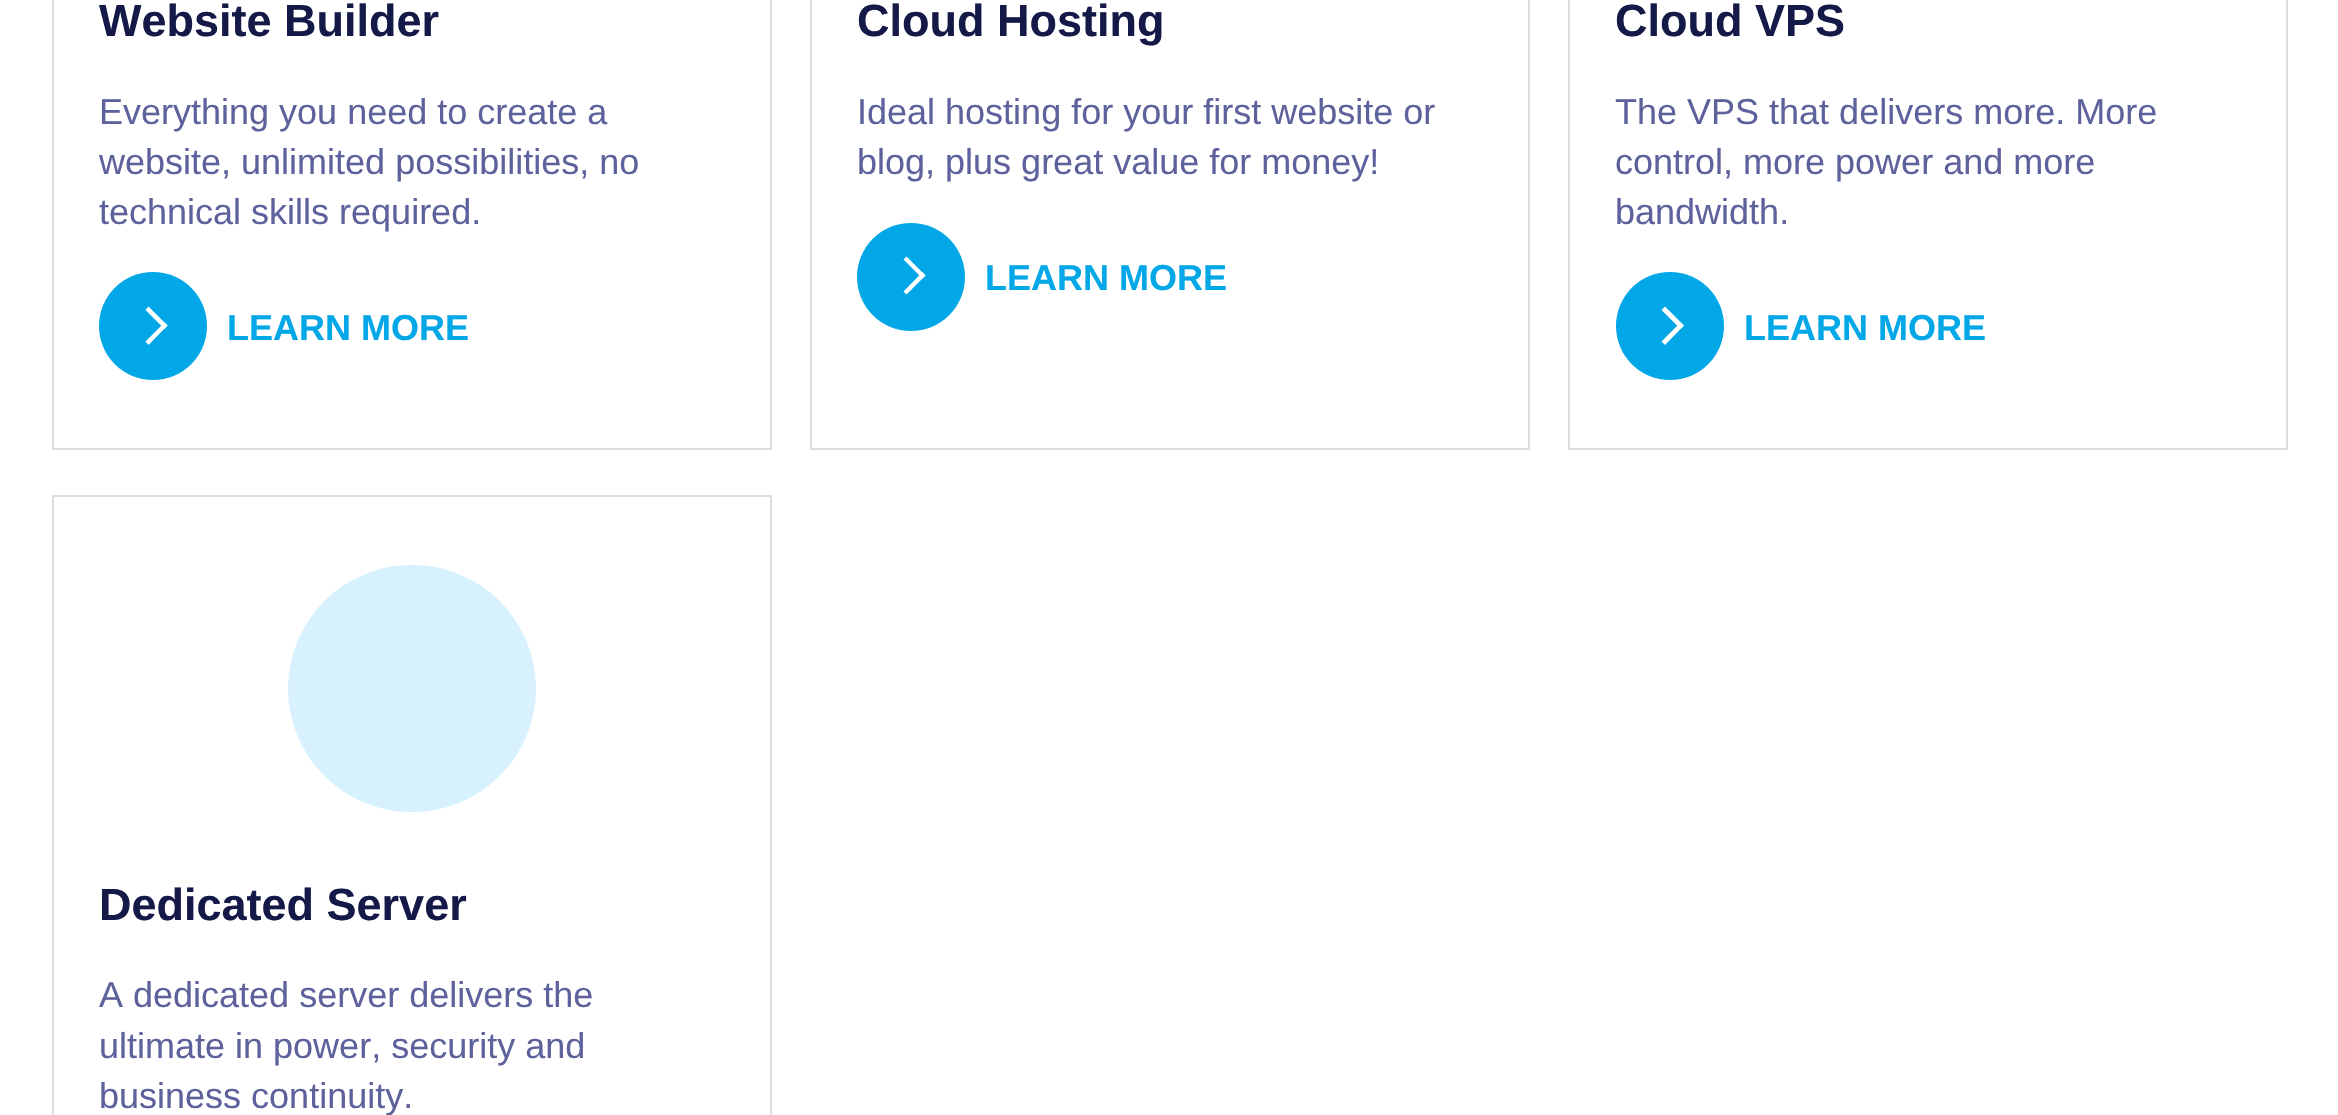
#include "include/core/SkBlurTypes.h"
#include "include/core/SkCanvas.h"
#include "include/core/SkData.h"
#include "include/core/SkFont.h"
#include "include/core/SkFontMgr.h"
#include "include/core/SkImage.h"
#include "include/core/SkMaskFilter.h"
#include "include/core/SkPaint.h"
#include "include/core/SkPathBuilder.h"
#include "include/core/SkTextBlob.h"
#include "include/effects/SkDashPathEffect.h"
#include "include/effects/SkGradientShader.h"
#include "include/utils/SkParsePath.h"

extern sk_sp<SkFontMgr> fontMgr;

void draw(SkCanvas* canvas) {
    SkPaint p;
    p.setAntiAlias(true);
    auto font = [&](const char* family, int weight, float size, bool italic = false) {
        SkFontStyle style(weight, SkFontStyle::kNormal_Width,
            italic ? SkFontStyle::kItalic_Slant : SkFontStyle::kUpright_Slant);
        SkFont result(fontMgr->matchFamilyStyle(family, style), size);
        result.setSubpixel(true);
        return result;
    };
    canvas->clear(0xFFFFFFFF);
    p.setStyle(SkPaint::kStroke_Style);
    p.setStrokeWidth(2);
    p.setColor(0xFFDDDDDD);
    canvas->drawRect(SkRect::MakeLTRB(53, -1, 771, 449), p);
    auto font1 = font("Liberation Sans", 700, 45);
    p.setStyle(SkPaint::kFill_Style);
    p.setColor(0xFF151948);
    canvas->drawString("Website Builder", 99, 36, font1, p);
    auto font2 = font("Liberation Sans", 400, 36);
    p.setColor(0xFF5E629C);
    {
        const struct { const char* s; float x, y; } items[] = {
            {"Everything you need to create a", 99, 124},
            {"website, unlimited possibilities, no", 99, 174},
            {"technical skills required.", 99, 224},
        };
        for (auto [s, x, y] : items) {
            canvas->drawString(s, x, y, font2, p);
        }
    }
    p.setColor(0xFF02A7E7);
    canvas->drawCircle(153, 326, 54, p);
    p.setColor(0xFFFFFFFF);
    canvas->drawPath(SkPathBuilder().moveTo(148.5f, 306.5f).lineTo(167.5f, 325.5f).lineTo(164.5f, 329).lineTo(145.5f, 310).close().detach(), p);
    canvas->drawPath(SkPathBuilder().moveTo(164.5f, 322.5f).lineTo(167.5f, 325.5f).lineTo(148.5f, 345).lineTo(145.5f, 341.5f).close().detach(), p);
    auto font3 = font("Liberation Sans", 700, 36);
    p.setColor(0xFF02A7E7);
    canvas->drawString("LEARN MORE", 227, 340, font3, p);
    p.setStyle(SkPaint::kStroke_Style);
    p.setColor(0xFFDDDDDD);
    canvas->drawRect(SkRect::MakeLTRB(811, -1, 1529, 449), p);
    p.setStyle(SkPaint::kFill_Style);
    p.setColor(0xFF151948);
    canvas->drawString("Cloud Hosting", 857, 36, font1, p);
    p.setColor(0xFF5E629C);
    canvas->drawString("Ideal hosting for your first website or", 857, 124, font2, p);
    canvas->drawString("blog, plus great value for money!", 857, 174, font2, p);
    p.setColor(0xFF02A7E7);
    canvas->drawCircle(911, 277, 54, p);
    p.setColor(0xFFFFFFFF);
    canvas->drawPath(SkPathBuilder().moveTo(906.5f, 256.5f).lineTo(925.5f, 275.5f).lineTo(922.5f, 278.5f).lineTo(903.5f, 259.5f).close().detach(), p);
    canvas->drawPath(SkPathBuilder().moveTo(922.5f, 272).lineTo(925.5f, 275.5f).lineTo(906.5f, 294.5f).lineTo(903.5f, 291.5f).close().detach(), p);
    p.setColor(0xFF02A7E7);
    canvas->drawString("LEARN MORE", 985, 290, font3, p);
    p.setStyle(SkPaint::kStroke_Style);
    p.setColor(0xFFDDDDDD);
    canvas->drawRect(SkRect::MakeLTRB(1569, -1, 2287, 449), p);
    p.setStyle(SkPaint::kFill_Style);
    p.setColor(0xFF151948);
    canvas->drawString("Cloud VPS", 1615, 36, font1, p);
    p.setColor(0xFF5E629C);
    {
        const struct { const char* s; float x, y; } items[] = {
            {"The VPS that delivers more. More", 1615, 124},
            {"control, more power and more", 1615, 174},
            {"bandwidth.", 1615, 224},
        };
        for (auto [s, x, y] : items) {
            canvas->drawString(s, x, y, font2, p);
        }
    }
    p.setColor(0xFF02A7E7);
    canvas->drawCircle(1670, 326, 54, p);
    p.setColor(0xFFFFFFFF);
    canvas->drawPath(SkPathBuilder().moveTo(1665, 306.5f).lineTo(1684, 325.5f).lineTo(1680.5f, 329).lineTo(1661.5f, 310).close().detach(), p);
    canvas->drawPath(SkPathBuilder().moveTo(1680.5f, 322.5f).lineTo(1684, 325.5f).lineTo(1665, 345).lineTo(1661.5f, 341.5f).close().detach(), p);
    p.setColor(0xFF02A7E7);
    canvas->drawString("LEARN MORE", 1744, 340, font3, p);
    p.setStyle(SkPaint::kStroke_Style);
    p.setColor(0xFFDDDDDD);
    canvas->drawRect(SkRect::MakeLTRB(53, 496, 771, 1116), p);
    p.setStyle(SkPaint::kFill_Style);
    p.setColor(0xFFD7F1FF);
    canvas->drawRoundRect(SkRect::MakeLTRB(288, 565, 536, 812), 123.5f, 123.5f, p);
    p.setColor(0xFF151948);
    canvas->drawString("Dedicated Server", 99, 920, font1, p);
    p.setColor(0xFF5E629C);
    {
        const struct { const char* s; float x, y; } items[] = {
            {"A dedicated server delivers the", 99, 1007},
            {"ultimate in power, security and", 99, 1058},
            {"business continuity.", 99, 1108},
        };
        for (auto [s, x, y] : items) {
            canvas->drawString(s, x, y, font2, p);
        }
    }
}
